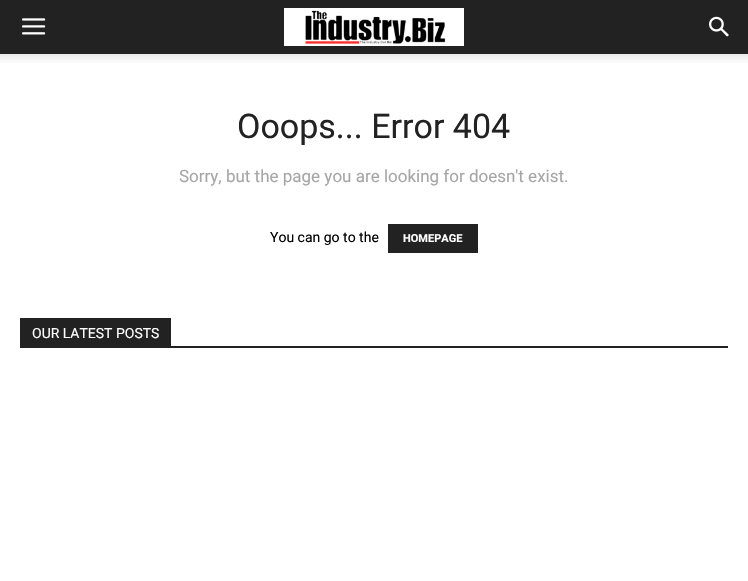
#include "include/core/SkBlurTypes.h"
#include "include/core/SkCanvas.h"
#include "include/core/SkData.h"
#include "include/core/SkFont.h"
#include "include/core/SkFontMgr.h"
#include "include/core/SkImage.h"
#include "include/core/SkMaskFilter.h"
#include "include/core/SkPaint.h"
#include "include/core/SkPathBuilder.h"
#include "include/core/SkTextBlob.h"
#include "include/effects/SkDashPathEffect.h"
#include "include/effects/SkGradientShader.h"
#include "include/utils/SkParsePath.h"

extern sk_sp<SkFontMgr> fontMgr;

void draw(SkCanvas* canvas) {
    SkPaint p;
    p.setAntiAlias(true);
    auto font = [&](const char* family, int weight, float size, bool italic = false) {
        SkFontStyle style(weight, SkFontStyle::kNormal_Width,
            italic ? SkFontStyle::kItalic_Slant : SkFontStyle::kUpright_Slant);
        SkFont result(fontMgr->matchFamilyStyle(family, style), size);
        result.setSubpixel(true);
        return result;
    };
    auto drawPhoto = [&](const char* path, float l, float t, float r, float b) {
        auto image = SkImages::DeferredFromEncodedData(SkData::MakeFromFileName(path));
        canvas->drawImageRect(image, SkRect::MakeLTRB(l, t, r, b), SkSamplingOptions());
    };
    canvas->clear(0xFFFFFFFF);
    p.setColor(0xFF222222);
    canvas->drawRect(SkRect::MakeLTRB(0, 0, 748, 54), p);
    drawPhoto("media/1.png", 22, 18, 46, 35);
    drawPhoto("media/2.png", 284, 8, 464, 46);
    drawPhoto("media/3.png", 709, 16, 729, 37);
    drawPhoto("media/4.png", 0, 54, 748, 63);
    auto font1 = font("Roboto", 400, 34);
    canvas->drawString("Ooops... Error 404", 237, 138, font1, p);
    auto font2 = font("Roboto", 400, 17);
    p.setColor(0xFFA6A6A6);
    canvas->drawString("Sorry, but the page you are looking for doesn't exist.", 179, 182, font2, p);
    auto font3 = font("Roboto", 400, 14);
    p.setColor(0xFF000000);
    canvas->drawString("You can go to the", 270, 242, font3, p);
    p.setColor(0xFF222222);
    canvas->drawRect(SkRect::MakeLTRB(388, 224, 478, 253), p);
    auto font4 = font("Roboto", 700, 11);
    p.setColor(0xFFFFFFFF);
    canvas->drawString("HOMEPAGE", 403, 242, font4, p);
    p.setColor(0xFF222222);
    canvas->drawRect(SkRect::MakeLTRB(20, 346, 728, 348), p);
    canvas->drawRect(SkRect::MakeLTRB(20, 318, 171, 346), p);
    p.setColor(0xFFFFFFFF);
    canvas->drawString("OUR LATEST POSTS", 32, 338, font3, p);
}
